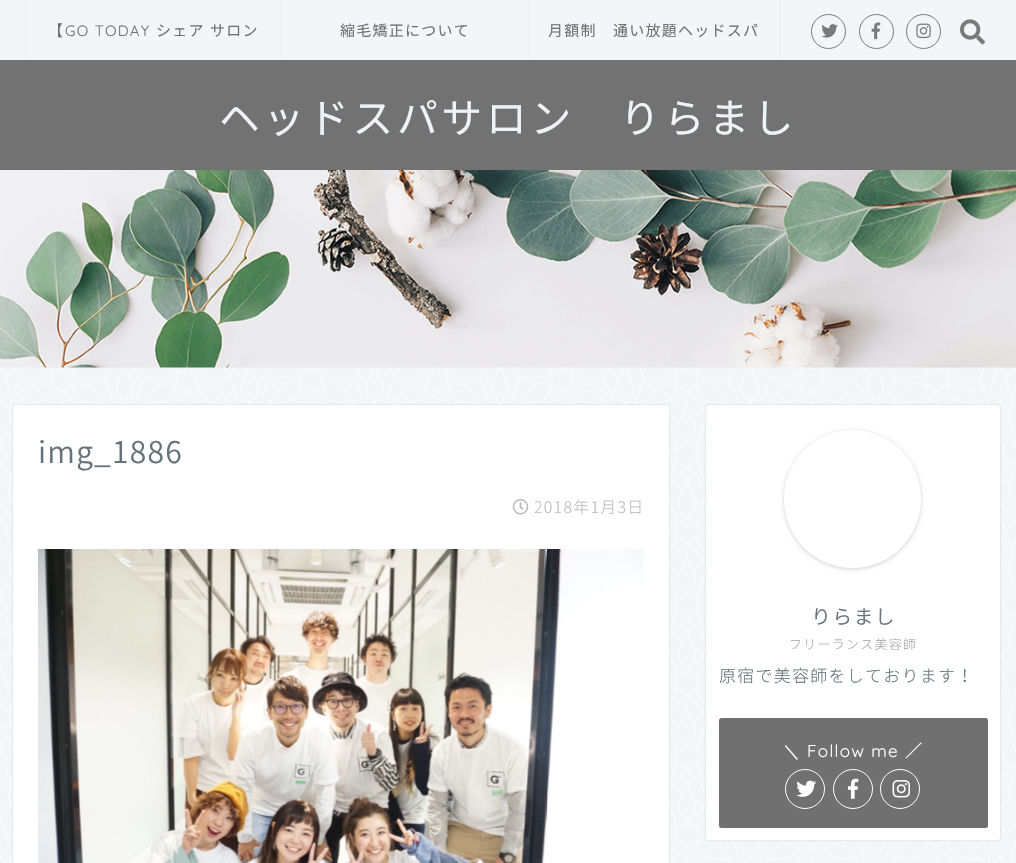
#include "include/core/SkBlurTypes.h"
#include "include/core/SkCanvas.h"
#include "include/core/SkData.h"
#include "include/core/SkFont.h"
#include "include/core/SkFontMgr.h"
#include "include/core/SkImage.h"
#include "include/core/SkMaskFilter.h"
#include "include/core/SkPaint.h"
#include "include/core/SkPathBuilder.h"
#include "include/core/SkTextBlob.h"
#include "include/effects/SkDashPathEffect.h"
#include "include/effects/SkGradientShader.h"
#include "include/utils/SkParsePath.h"

extern sk_sp<SkFontMgr> fontMgr;

void draw(SkCanvas* canvas) {
    SkPaint p;
    p.setAntiAlias(true);
    auto font = [&](const char* family, int weight, float size, bool italic = false) {
        SkFontStyle style(weight, SkFontStyle::kNormal_Width,
            italic ? SkFontStyle::kItalic_Slant : SkFontStyle::kUpright_Slant);
        SkFont result(fontMgr->matchFamilyStyle(family, style), size);
        result.setSubpixel(true);
        return result;
    };
    auto drawTracked = [&](const char* s, float x, float y, const SkFont& font, const SkPaint& ink, float letter, float word) {
        std::vector<SkGlyphID> glyphs(font.countText(s, strlen(s), SkTextEncoding::kUTF8));
        std::vector<float> xs(glyphs.size());
        font.textToGlyphs(s, strlen(s), SkTextEncoding::kUTF8, glyphs);
        font.getXPos(glyphs, xs, x);
        float extra = 0;
        for (size_t i = 0; i < glyphs.size(); i++) {
            xs[i] += extra;
            extra += letter + word * (glyphs[i] == font.unicharToGlyph(' '));
        }
        canvas->drawTextBlob(SkTextBlob::MakeFromPosHGlyphs(glyphs, xs, y, font), 0, 0, ink);
    };
    auto drawPhoto = [&](const char* path, float l, float t, float r, float b) {
        auto image = SkImages::DeferredFromEncodedData(SkData::MakeFromFileName(path));
        canvas->drawImageRect(image, SkRect::MakeLTRB(l, t, r, b), SkSamplingOptions());
    };
    canvas->clear(0xFFF2F6F9);
    drawPhoto("media/1.png", 0, 367, 1016, 863);
    p.setColor(0xFFEFEFEF);
    canvas->drawPath(SkPathBuilder().moveTo(25, 60).lineTo(25, 0).lineTo(26, 2).lineTo(26, 60).close().detach(), p);
    auto font1 = font("Noto Sans JP", 400, 15);
    p.setColor(0xFF707070);
    drawTracked("【", 48, 36, font1, p, 1.25f, 0);
    auto font2 = font("Quicksand", 300, 15);
    drawTracked("GO TODAY", 65, 36, font2, p, 1.25f, 0);
    drawTracked("シェア", 156, 36, font1, p, 1.25f, 0);
    drawTracked("サロン", 210, 36, font1, p, 1.25f, 0);
    p.setColor(0xFFEFEFEF);
    canvas->drawPath(SkPathBuilder().moveTo(280, 60).lineTo(280, 0).lineTo(281, 2).lineTo(281, 60).close().detach(), p);
    p.setColor(0xFF707070);
    drawTracked("縮毛矯正について", 340, 36, font1, p, 1.25f, 0);
    p.setColor(0xFFEFEFEF);
    canvas->drawPath(SkPathBuilder().moveTo(780, 0).lineTo(780, 60).lineTo(779, 60).lineTo(779, 2).close().detach(), p);
    canvas->drawPath(SkPathBuilder().moveTo(528, 60).lineTo(528, 0).lineTo(529, 2).lineTo(529, 60).close().detach(), p);
    p.setColor(0xFF707070);
    drawTracked("月額制　通い放題ヘッドスパ", 548, 36, font1, p, 1.25f, 0);
    p.setStyle(SkPaint::kStroke_Style);
    p.setStrokeWidth(1);
    p.setColor(0xFF7A7A7A);
    canvas->drawCircle(828.5f, 31.5f, 17, p);
    drawPhoto("media/2.png", 821, 24, 838, 38);
    canvas->drawCircle(876.5f, 31.5f, 17, p);
    drawPhoto("media/3.png", 871, 22, 881, 40);
    canvas->drawCircle(923.5f, 31.5f, 17, p);
    drawPhoto("media/4.png", 916, 23, 931, 39);
    drawPhoto("media/5.png", 960, 19, 985, 45);
    p.setStyle(SkPaint::kFill_Style);
    p.setColor(0xFF727272);
    canvas->drawRect(SkRect::MakeLTRB(0, 60, 1016, 170), p);
    auto font3 = font("Noto Sans JP", 400, 40.75f);
    p.setColor(0xFFEFF2F7);
    drawTracked("ヘッドスパサロン　りらまし", 219, 133, font3, p, 3.75f, 0);
    drawPhoto("media/6.png", 0, 170, 1016, 368);
    p.setColor(0x2E000000);
    p.setMaskFilter(SkMaskFilter::MakeBlur(kNormal_SkBlurStyle, 1));
    canvas->drawRoundRect(SkRect::MakeLTRB(13, 405, 669, 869), 2.5f, 2.5f, p);
    p.setMaskFilter(nullptr);
    p.setColor(0xFFFFFFFF);
    canvas->drawRoundRect(SkRect::MakeLTRB(13, 405, 669, 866), 2.5f, 2.5f, p);
    auto font4 = font("Noto Sans JP", 300, 30);
    p.setColor(0xFF66737A);
    drawTracked("img_1886", 38, 463, font4, p, 1.25f, 0);
    drawPhoto("media/7.png", 512, 499, 529, 515);
    auto font5 = font("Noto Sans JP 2", 300, 16);
    p.setColor(0xFFBBBBBB);
    drawTracked("2018年1月3日", 534, 513, font5, p, 1.25f, 0);
    drawPhoto("media/8.png", 38, 549, 644, 863);
    p.setColor(0x2E000000);
    p.setMaskFilter(SkMaskFilter::MakeBlur(kNormal_SkBlurStyle, 1));
    canvas->drawRoundRect(SkRect::MakeLTRB(706, 405, 1000, 840), 2.5f, 2.5f, p);
    p.setMaskFilter(nullptr);
    p.setColor(0xFFFFFFFF);
    canvas->drawRoundRect(SkRect::MakeLTRB(706, 405, 1000, 840), 2.5f, 2.5f, p);
    p.setColor(0x2E000000);
    p.setMaskFilter(SkMaskFilter::MakeBlur(kNormal_SkBlurStyle, 2));
    canvas->drawRoundRect(SkRect::MakeLTRB(784, 431, 921, 569), 68.5f, 68.5f, p);
    p.setMaskFilter(nullptr);
    p.setColor(0xFFFFFFFF);
    canvas->drawRoundRect(SkRect::MakeLTRB(784, 430, 921, 568), 68.5f, 68.5f, p);
    auto font6 = font("Noto Sans JP", 300, 20);
    p.setColor(0xFF66737A);
    drawTracked("りらまし", 811, 624, font6, p, 1.25f, 0);
    auto font7 = font("Noto Sans JP 2", 300, 13);
    p.setColor(0xFFA6A6A6);
    drawTracked("フリーランス美容師", 789, 649, font7, p, 1.25f, 0);
    auto font8 = font("Noto Sans JP 2", 300, 17);
    p.setColor(0xFF66737A);
    drawTracked("原宿で美容師をしております！", 719, 682, font8, p, 1.25f, 0);
    p.setColor(0xFF707070);
    canvas->drawRoundRect(SkRect::MakeLTRB(719, 718, 988, 828), 2.5f, 2.5f, p);
    auto font9 = font("WenQuanYi Zen Hei", 500, 17);
    p.setColor(0xFFFFFFFF);
    drawTracked("＼", 783, 757, font9, p, 1.25f, 0);
    auto font10 = font("Quicksand", 300, 17);
    drawTracked("Follow me", 807, 757, font10, p, 1.25f, 0);
    auto font11 = font("Noto Sans JP", 400, 17);
    drawTracked("／", 905, 757, font11, p, 1.25f, 0);
    p.setStyle(SkPaint::kStroke_Style);
    canvas->drawCircle(805, 789, 19.5f, p);
    drawPhoto("media/9.png", 796, 780, 816, 797);
    canvas->drawCircle(853, 789, 19.5f, p);
    drawPhoto("media/10.png", 847, 778, 859, 799);
    canvas->drawCircle(900, 789, 19.5f, p);
    drawPhoto("media/11.png", 892, 780, 910, 798);
}
